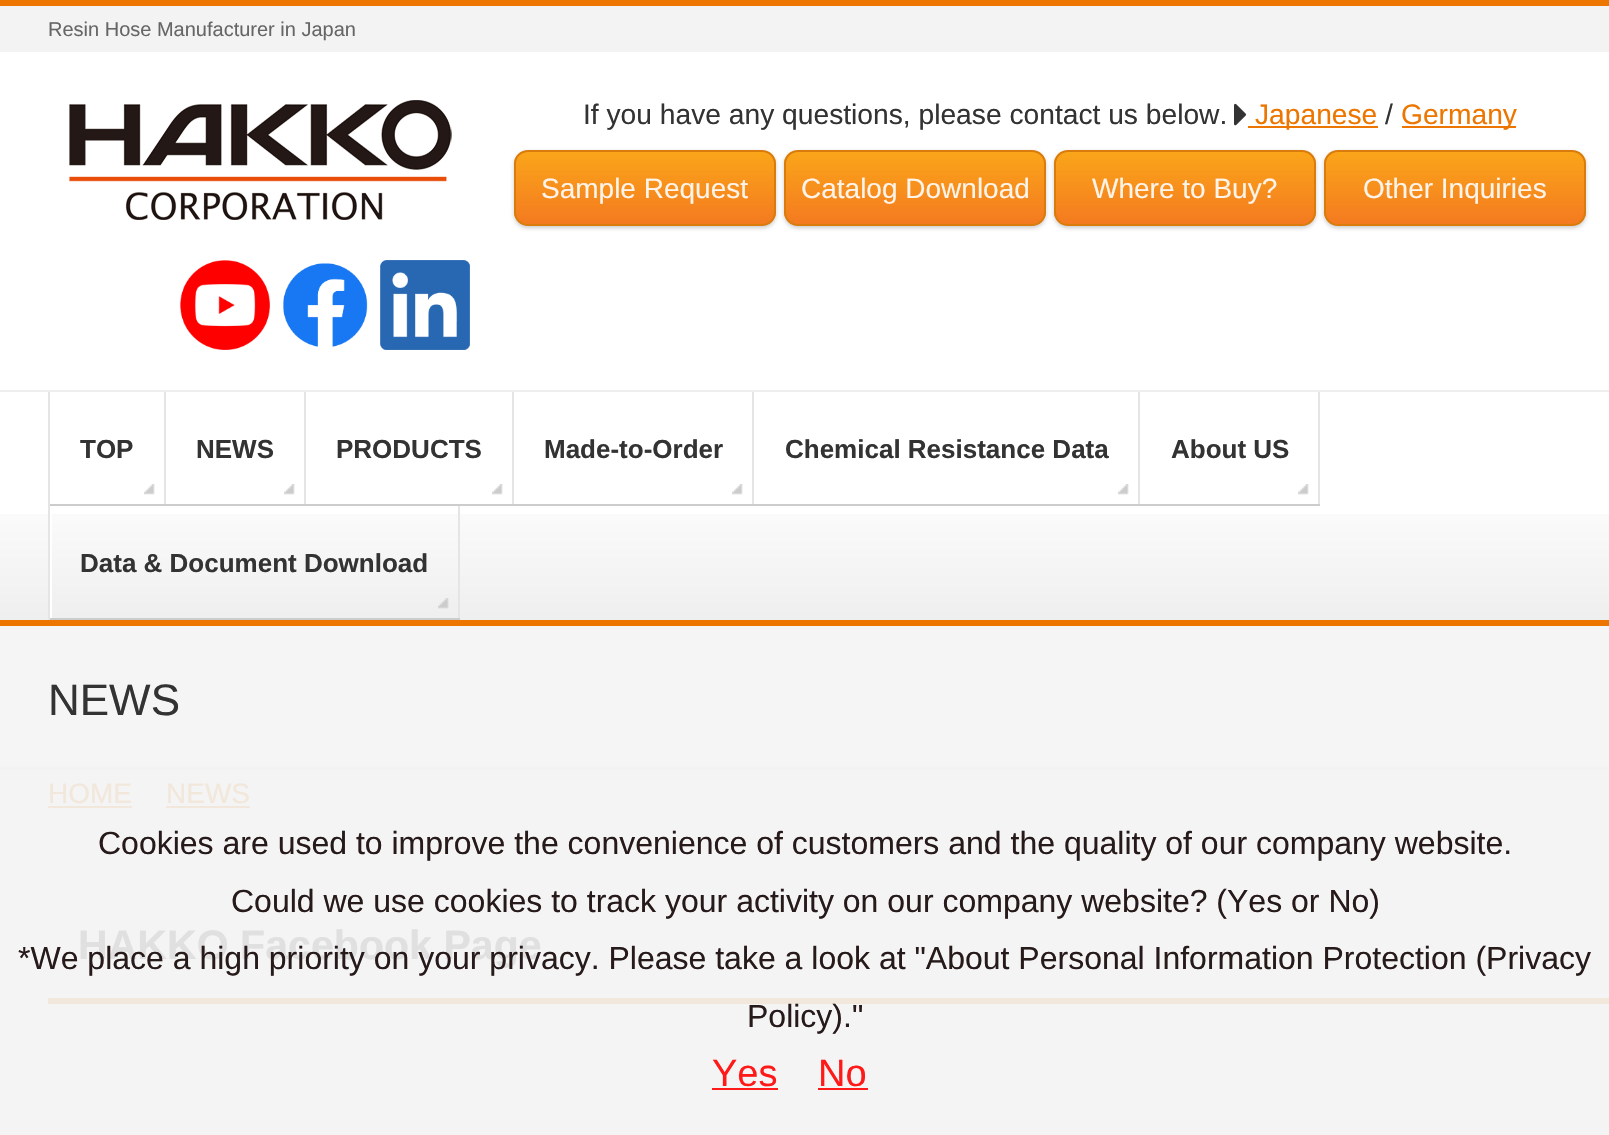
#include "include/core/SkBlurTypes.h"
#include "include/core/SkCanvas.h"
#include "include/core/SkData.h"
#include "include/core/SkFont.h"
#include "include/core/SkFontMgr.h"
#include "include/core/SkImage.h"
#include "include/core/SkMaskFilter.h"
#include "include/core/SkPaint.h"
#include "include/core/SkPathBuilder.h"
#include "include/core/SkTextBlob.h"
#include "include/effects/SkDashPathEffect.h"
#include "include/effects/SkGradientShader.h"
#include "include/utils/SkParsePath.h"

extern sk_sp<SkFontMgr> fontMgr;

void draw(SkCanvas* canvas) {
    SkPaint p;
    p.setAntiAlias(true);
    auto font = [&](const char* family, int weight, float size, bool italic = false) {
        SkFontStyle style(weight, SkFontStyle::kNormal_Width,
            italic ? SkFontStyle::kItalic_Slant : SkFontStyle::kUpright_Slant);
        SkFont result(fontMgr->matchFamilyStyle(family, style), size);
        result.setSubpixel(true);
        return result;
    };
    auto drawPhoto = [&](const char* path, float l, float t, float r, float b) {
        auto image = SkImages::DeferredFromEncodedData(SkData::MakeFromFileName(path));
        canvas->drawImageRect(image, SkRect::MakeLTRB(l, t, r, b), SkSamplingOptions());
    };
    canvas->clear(0xFFFFFFFF);
    {
        const struct { float l, t, r, b; SkColor color; } items[] = {
            {0, 770, 1609, 1135, 0xFFF4F4F4},
            {0, 6, 1609, 52, 0xFFF3F3F3},
            {0, 0, 1609, 6, 0xFFED7600},
        };
        for (auto [l, t, r, b, color] : items) {
            p.setColor(color);
            canvas->drawRect(SkRect::MakeLTRB(l, t, r, b), p);
        }
    }
    auto font1 = font("Liberation Sans", 400, 20);
    p.setColor(0xFF666666);
    canvas->drawString("Resin Hose Manufacturer in Japan", 48, 36, font1, p);
    drawPhoto("media/1.png", 69, 100, 452, 220);
    auto font2 = font("Liberation Sans", 400, 28.2f);
    p.setColor(0xFF333333);
    canvas->drawString("If you have any questions, please contact us below.", 583, 124, font2, p);
    drawPhoto("media/2.png", 1234, 103, 1247, 126);
    p.setColor(0xFFED7600);
    canvas->drawRect(SkRect::MakeLTRB(1248, 126, 1378, 128), p);
    canvas->drawString("Japanese", 1255, 124, font2, p);
    p.setColor(0xFF333333);
    canvas->drawString("/", 1385, 124, font2, p);
    p.setColor(0xFFED7600);
    canvas->drawRect(SkRect::MakeLTRB(1402, 126, 1516, 128), p);
    canvas->drawString("Germany", 1401, 124, font2, p);
    p.setColor(0x33000000);
    p.setMaskFilter(SkMaskFilter::MakeBlur(kNormal_SkBlurStyle, 2));
    canvas->drawRoundRect(SkRect::MakeLTRB(514, 152, 776, 228), 14, 14, p);
    p.setMaskFilter(nullptr);
    canvas->save();
    canvas->clipPath(SkPathBuilder().moveTo(528, 150).lineTo(762, 150).cubicTo(769.5f, 150, 776, 156.5f, 776, 164).lineTo(776, 212).cubicTo(776, 219.5f, 769.5f, 226, 762, 226).lineTo(528, 226).cubicTo(520.5f, 226, 514, 219.5f, 514, 212).lineTo(514, 164).cubicTo(514, 156.5f, 520.5f, 150, 528, 150).close().detach(), true);
    {
        const SkColor colors[] = {0xFFFAA51A, 0xFFF47A20};
        const float stops[] = {0, 1};
        const SkPoint ends[] = {{516, 152}, {516, 224}};
        p.setShader(SkGradientShader::MakeLinear(ends, colors, stops, 2, SkTileMode::kClamp));
        p.setAlpha(255);
    }
    canvas->drawRect(SkRect::MakeLTRB(514, 152, 776, 224), p);
    canvas->restore();
    p.setStyle(SkPaint::kStroke_Style);
    p.setStrokeWidth(2);
    p.setShader(nullptr);
    p.setColor(0xFFDA7C0C);
    canvas->drawRoundRect(SkRect::MakeLTRB(515, 151, 775, 225), 13, 13, p);
    auto font3 = font("Liberation Sans", 400, 28);
    p.setStyle(SkPaint::kFill_Style);
    p.setColor(0xFFFEF4E9);
    canvas->drawString("Sample Request", 541, 198, font3, p);
    p.setColor(0x33000000);
    p.setMaskFilter(SkMaskFilter::MakeBlur(kNormal_SkBlurStyle, 2));
    canvas->drawRoundRect(SkRect::MakeLTRB(784, 152, 1046, 228), 14, 14, p);
    p.setMaskFilter(nullptr);
    canvas->save();
    canvas->clipPath(SkPathBuilder().moveTo(798, 150).lineTo(1032, 150).cubicTo(1039.5f, 150, 1046, 156.5f, 1046, 164).lineTo(1046, 212).cubicTo(1046, 219.5f, 1039.5f, 226, 1032, 226).lineTo(798, 226).cubicTo(790.5f, 226, 784, 219.5f, 784, 212).lineTo(784, 164).cubicTo(784, 156.5f, 790.5f, 150, 798, 150).close().detach(), true);
    {
        const SkColor colors[] = {0xFFFAA51A, 0xFFF47A20};
        const float stops[] = {0, 1};
        const SkPoint ends[] = {{786, 152}, {786, 224}};
        p.setShader(SkGradientShader::MakeLinear(ends, colors, stops, 2, SkTileMode::kClamp));
        p.setAlpha(255);
    }
    canvas->drawRect(SkRect::MakeLTRB(784, 152, 1046, 224), p);
    canvas->restore();
    p.setStyle(SkPaint::kStroke_Style);
    p.setShader(nullptr);
    p.setColor(0xFFDA7C0C);
    canvas->drawRoundRect(SkRect::MakeLTRB(785, 151, 1045, 225), 13, 13, p);
    p.setStyle(SkPaint::kFill_Style);
    p.setColor(0xFFFEF4E9);
    canvas->drawString("Catalog Download", 801, 198, font3, p);
    p.setColor(0x33000000);
    p.setMaskFilter(SkMaskFilter::MakeBlur(kNormal_SkBlurStyle, 2));
    canvas->drawRoundRect(SkRect::MakeLTRB(1054, 152, 1316, 228), 14, 14, p);
    p.setMaskFilter(nullptr);
    canvas->save();
    canvas->clipPath(SkPathBuilder().moveTo(1068, 150).lineTo(1302, 150).cubicTo(1309.5f, 150, 1316, 156.5f, 1316, 164).lineTo(1316, 212).cubicTo(1316, 219.5f, 1309.5f, 226, 1302, 226).lineTo(1068, 226).cubicTo(1060.5f, 226, 1054, 219.5f, 1054, 212).lineTo(1054, 164).cubicTo(1054, 156.5f, 1060.5f, 150, 1068, 150).close().detach(), true);
    {
        const SkColor colors[] = {0xFFFAA51A, 0xFFF47A20};
        const float stops[] = {0, 1};
        const SkPoint ends[] = {{1056, 152}, {1056, 224}};
        p.setShader(SkGradientShader::MakeLinear(ends, colors, stops, 2, SkTileMode::kClamp));
        p.setAlpha(255);
    }
    canvas->drawRect(SkRect::MakeLTRB(1054, 152, 1316, 224), p);
    canvas->restore();
    p.setStyle(SkPaint::kStroke_Style);
    p.setShader(nullptr);
    p.setColor(0xFFDA7C0C);
    canvas->drawRoundRect(SkRect::MakeLTRB(1055, 151, 1315, 225), 13, 13, p);
    p.setStyle(SkPaint::kFill_Style);
    p.setColor(0xFFFEF4E9);
    canvas->drawString("Where to Buy?", 1092, 198, font3, p);
    p.setColor(0x33000000);
    p.setMaskFilter(SkMaskFilter::MakeBlur(kNormal_SkBlurStyle, 2));
    canvas->drawRoundRect(SkRect::MakeLTRB(1324, 152, 1586, 228), 14, 14, p);
    p.setMaskFilter(nullptr);
    canvas->save();
    canvas->clipPath(SkPathBuilder().moveTo(1338, 150).lineTo(1572, 150).cubicTo(1579.5f, 150, 1586, 156.5f, 1586, 164).lineTo(1586, 212).cubicTo(1586, 219.5f, 1579.5f, 226, 1572, 226).lineTo(1338, 226).cubicTo(1330.5f, 226, 1324, 219.5f, 1324, 212).lineTo(1324, 164).cubicTo(1324, 156.5f, 1330.5f, 150, 1338, 150).close().detach(), true);
    {
        const SkColor colors[] = {0xFFFAA51A, 0xFFF47A20};
        const float stops[] = {0, 1};
        const SkPoint ends[] = {{1326, 152}, {1326, 224}};
        p.setShader(SkGradientShader::MakeLinear(ends, colors, stops, 2, SkTileMode::kClamp));
        p.setAlpha(255);
    }
    canvas->drawRect(SkRect::MakeLTRB(1324, 152, 1586, 224), p);
    canvas->restore();
    p.setStyle(SkPaint::kStroke_Style);
    p.setShader(nullptr);
    p.setColor(0xFFDA7C0C);
    canvas->drawRoundRect(SkRect::MakeLTRB(1325, 151, 1585, 225), 13, 13, p);
    p.setStyle(SkPaint::kFill_Style);
    p.setColor(0xFFFEF4E9);
    canvas->drawString("Other Inquiries", 1363, 198, font3, p);
    drawPhoto("media/3.png", 180, 260, 270, 350);
    drawPhoto("media/4.png", 283, 263, 368, 347);
    drawPhoto("media/5.png", 380, 260, 470, 350);
    drawPhoto("media/6.png", 0, 514, 1609, 620);
    {
        const struct { float l, t, r, b; SkColor color; } items[] = {
            {0, 390, 1609, 392, 0xFFEEEEEE},
            {0, 620, 1609, 626, 0xFFED7600},
            {48, 392, 50, 620, 0xFFE5E5E5},
        };
        for (auto [l, t, r, b, color] : items) {
            p.setColor(color);
            canvas->drawRect(SkRect::MakeLTRB(l, t, r, b), p);
        }
    }
    drawPhoto("media/7.png", 144, 484, 155, 495);
    canvas->drawRect(SkRect::MakeLTRB(164, 392, 166, 506), p);
    p.setColor(0xFFCCCCCC);
    canvas->drawRect(SkRect::MakeLTRB(50, 504, 166, 506), p);
    auto font4 = font("Liberation Sans", 700, 26);
    p.setColor(0xFF333333);
    canvas->drawString("TOP", 80, 458, font4, p);
    drawPhoto("media/7.png", 284, 484, 295, 495);
    p.setColor(0xFFE5E5E5);
    canvas->drawRect(SkRect::MakeLTRB(304, 392, 306, 506), p);
    p.setColor(0xFFCCCCCC);
    canvas->drawRect(SkRect::MakeLTRB(166, 504, 306, 506), p);
    p.setColor(0xFF333333);
    canvas->drawString("NEWS", 196, 458, font4, p);
    drawPhoto("media/7.png", 492, 484, 503, 495);
    p.setColor(0xFFE5E5E5);
    canvas->drawRect(SkRect::MakeLTRB(512, 392, 514, 506), p);
    p.setColor(0xFFCCCCCC);
    canvas->drawRect(SkRect::MakeLTRB(306, 504, 514, 506), p);
    p.setColor(0xFF333333);
    canvas->drawString("PRODUCTS", 336, 458, font4, p);
    drawPhoto("media/7.png", 732, 484, 743, 495);
    p.setColor(0xFFE5E5E5);
    canvas->drawRect(SkRect::MakeLTRB(752, 392, 754, 506), p);
    p.setColor(0xFFCCCCCC);
    canvas->drawRect(SkRect::MakeLTRB(514, 504, 754, 506), p);
    p.setColor(0xFF333333);
    canvas->drawString("Made-to-Order", 544, 458, font4, p);
    drawPhoto("media/7.png", 1118, 484, 1129, 495);
    p.setColor(0xFFE5E5E5);
    canvas->drawRect(SkRect::MakeLTRB(1138, 392, 1140, 506), p);
    p.setColor(0xFFCCCCCC);
    canvas->drawRect(SkRect::MakeLTRB(754, 504, 1140, 506), p);
    p.setColor(0xFF333333);
    canvas->drawString("Chemical Resistance Data", 785, 458, font4, p);
    drawPhoto("media/7.png", 1298, 484, 1309, 495);
    p.setColor(0xFFE5E5E5);
    canvas->drawRect(SkRect::MakeLTRB(1318, 392, 1320, 506), p);
    p.setColor(0xFFCCCCCC);
    canvas->drawRect(SkRect::MakeLTRB(1140, 504, 1320, 506), p);
    p.setColor(0xFF333333);
    canvas->drawString("About US", 1171, 458, font4, p);
    p.setColor(0xFFFFFFFF);
    canvas->drawRect(SkRect::MakeLTRB(50, 506, 52, 620), p);
    drawPhoto("media/8.png", 438, 598, 449, 609);
    p.setColor(0xFFE5E5E5);
    canvas->drawRect(SkRect::MakeLTRB(458, 506, 460, 620), p);
    p.setColor(0xFFCCCCCC);
    canvas->drawRect(SkRect::MakeLTRB(50, 618, 460, 620), p);
    p.setColor(0xFF333333);
    canvas->drawString("Data & Document Download", 80, 572, font4, p);
    {
        const struct { float l, t, r, b; SkColor color; } items[] = {
            {0, 626, 1609, 766, 0xFFF5F5F5},
            {0, 766, 1609, 768, 0xFFF3F3F3},
            {0, 768, 1609, 770, 0xFFF2F2F2},
        };
        for (auto [l, t, r, b, color] : items) {
            p.setColor(color);
            canvas->drawRect(SkRect::MakeLTRB(l, t, r, b), p);
        }
    }
    auto font5 = font("Liberation Sans", 400, 44);
    p.setColor(0xFF333333);
    canvas->drawString("NEWS", 48, 715, font5, p);
    p.setColor(0xFFF2E7DB);
    canvas->drawString("HOME", 48, 803, font3, p);
    canvas->drawRect(SkRect::MakeLTRB(48, 806, 132, 808), p);
    canvas->drawString("NEWS", 166, 803, font3, p);
    canvas->drawRect(SkRect::MakeLTRB(166, 806, 250, 808), p);
    canvas->drawRect(SkRect::MakeLTRB(48, 998, 1609, 1004), p);
    auto font6 = font("Liberation Sans", 700, 41.1f);
    p.setColor(0xFFE0E0E0);
    canvas->drawString("HAKKO Facebook Page", 78, 959, font6, p);
    auto font7 = font("Liberation Sans", 400, 32);
    p.setColor(0xFF271A1A);
    {
        const struct { const char* s; float x, y; } items[] = {
            {"Cookies are used to improve the convenience of customers and the quality of our company website.", 98, 854},
            {"Could we use cookies to track your activity on our company website? (Yes or No)", 231, 912},
            {"*We place a high priority on your privacy. Please take a look at \"About Personal Information Protection (Privacy", 18, 969},
            {"Policy).\"", 747, 1027},
        };
        for (auto [s, x, y] : items) {
            canvas->drawString(s, x, y, font7, p);
        }
    }
    auto font8 = font("Liberation Sans", 400, 38);
    p.setColor(0xFFFF1A1A);
    canvas->drawString("Yes", 712, 1086, font8, p);
    canvas->drawRect(SkRect::MakeLTRB(712, 1088, 778, 1090), p);
    canvas->drawString("No", 818, 1086, font8, p);
    canvas->drawRect(SkRect::MakeLTRB(818, 1088, 868, 1090), p);
}
